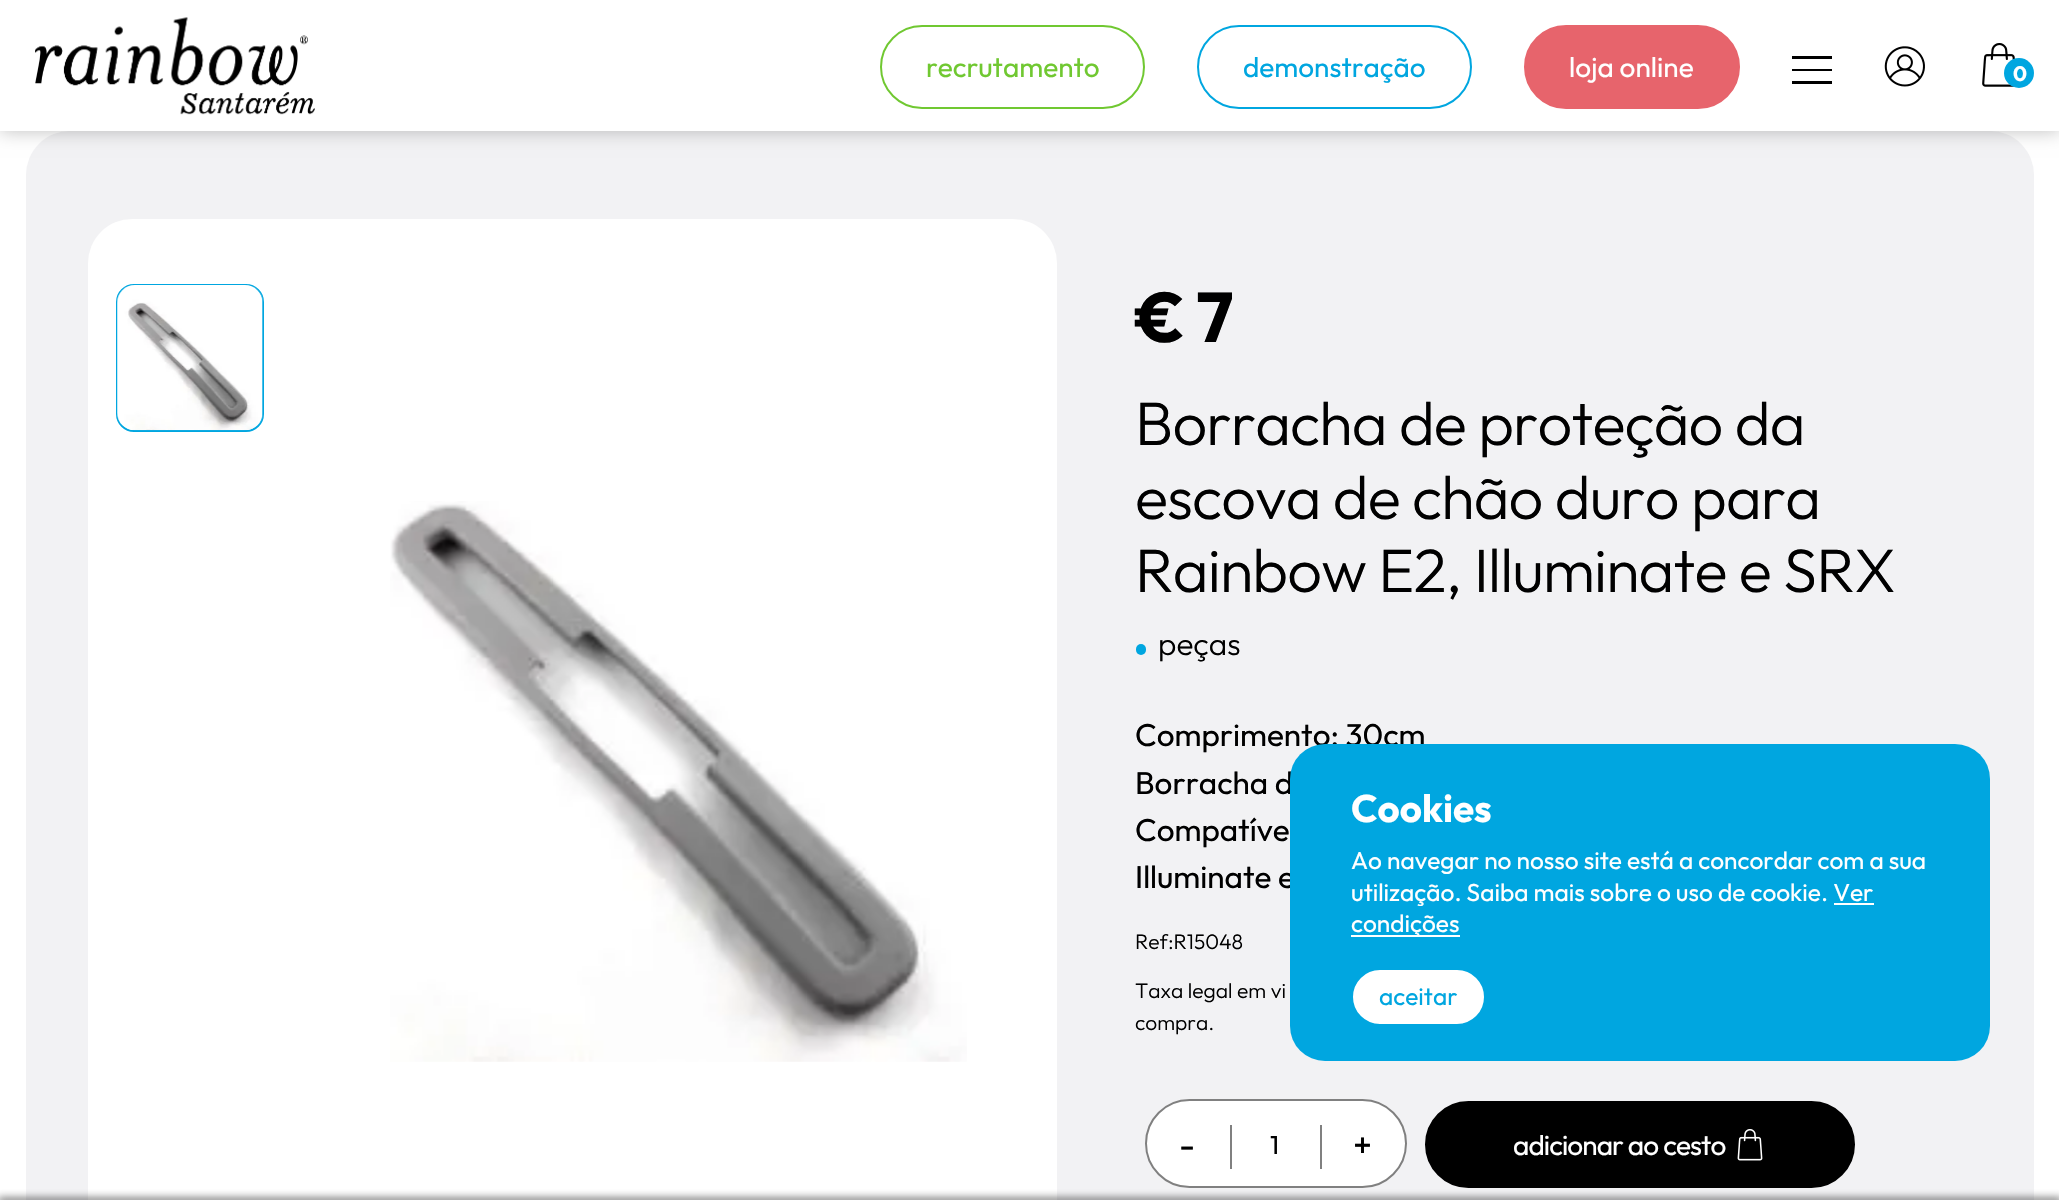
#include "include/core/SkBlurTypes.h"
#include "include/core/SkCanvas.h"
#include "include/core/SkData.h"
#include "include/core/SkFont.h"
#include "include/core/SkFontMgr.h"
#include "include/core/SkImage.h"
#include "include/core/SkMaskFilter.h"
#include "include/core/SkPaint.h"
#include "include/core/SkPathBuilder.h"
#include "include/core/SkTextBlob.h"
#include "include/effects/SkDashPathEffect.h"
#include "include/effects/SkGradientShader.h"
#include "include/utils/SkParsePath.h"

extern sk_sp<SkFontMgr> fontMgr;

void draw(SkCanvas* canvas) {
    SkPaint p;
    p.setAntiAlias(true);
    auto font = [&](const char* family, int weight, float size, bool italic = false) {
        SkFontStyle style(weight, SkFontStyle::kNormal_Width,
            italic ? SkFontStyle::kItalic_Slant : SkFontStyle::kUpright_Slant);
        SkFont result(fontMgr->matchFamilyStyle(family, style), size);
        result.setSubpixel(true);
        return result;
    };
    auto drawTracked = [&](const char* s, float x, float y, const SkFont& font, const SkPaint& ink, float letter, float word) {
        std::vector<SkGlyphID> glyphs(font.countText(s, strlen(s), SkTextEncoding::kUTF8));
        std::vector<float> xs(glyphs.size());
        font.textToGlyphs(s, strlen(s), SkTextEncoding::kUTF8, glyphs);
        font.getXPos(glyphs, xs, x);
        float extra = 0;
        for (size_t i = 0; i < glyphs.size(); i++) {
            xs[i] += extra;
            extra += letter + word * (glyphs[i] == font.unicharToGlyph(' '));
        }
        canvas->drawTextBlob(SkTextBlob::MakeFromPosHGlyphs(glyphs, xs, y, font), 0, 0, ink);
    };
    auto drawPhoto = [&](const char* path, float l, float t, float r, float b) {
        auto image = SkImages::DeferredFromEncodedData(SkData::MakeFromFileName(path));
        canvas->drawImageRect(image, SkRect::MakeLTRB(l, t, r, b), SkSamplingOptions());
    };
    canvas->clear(0xFFFFFFFF);
    p.setColor(0xFFF2F2F4);
    canvas->drawRoundRect(SkRect::MakeLTRB(26, 131, 2034, 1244), 44, 44, p);
    p.setColor(0x40000000);
    p.setMaskFilter(SkMaskFilter::MakeBlur(kNormal_SkBlurStyle, 9));
    canvas->drawRect(SkRect::MakeLTRB(0, 0, 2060, 131), p);
    p.setMaskFilter(nullptr);
    p.setColor(0xFFFFFFFF);
    canvas->drawRect(SkRect::MakeLTRB(0, 0, 2059, 131), p);
    drawPhoto("media/1.png", 35, 17, 315, 115);
    p.setStyle(SkPaint::kStroke_Style);
    p.setStrokeWidth(2);
    p.setColor(0xFF70C831);
    canvas->drawRoundRect(SkRect::MakeLTRB(881, 26, 1144, 108), 41, 41, p);
    auto font1 = font("Outfit", 400, 28);
    p.setStyle(SkPaint::kFill_Style);
    canvas->drawString("recrutamento", 926, 77, font1, p);
    p.setStyle(SkPaint::kStroke_Style);
    p.setColor(0xFF00A6E0);
    canvas->drawRoundRect(SkRect::MakeLTRB(1198, 26, 1471, 108), 41, 41, p);
    p.setStyle(SkPaint::kFill_Style);
    canvas->drawString("demonstração", 1243, 77, font1, p);
    p.setColor(0xFFE7646C);
    canvas->drawRoundRect(SkRect::MakeLTRB(1525, 26, 1739, 108), 41, 41, p);
    p.setStyle(SkPaint::kStroke_Style);
    canvas->drawRoundRect(SkRect::MakeLTRB(1525, 26, 1739, 108), 41, 41, p);
    p.setStyle(SkPaint::kFill_Style);
    p.setColor(0xFFFFFFFF);
    canvas->drawString("loja online", 1569, 77, font1, p);
    p.setColor(0xFF000000);
    canvas->drawPath(SkPathBuilder().moveTo(1792, 56).lineTo(1832, 56).lineTo(1832, 59).lineTo(1792, 59).close().moveTo(1792, 69).lineTo(1832, 69).lineTo(1832, 71).lineTo(1792, 71).close().moveTo(1792, 81).lineTo(1832, 81).lineTo(1832, 84).lineTo(1792, 84).close().detach(), p);
    drawPhoto("media/2.png", 1884, 46, 1925, 87);
    drawPhoto("media/3.png", 1982, 43, 2015, 87);
    p.setColor(0xFF00A6E0);
    canvas->drawCircle(2019, 73, 15, p);
    auto font2 = font("Outfit", 700, 21);
    p.setColor(0xFFFFFFFF);
    canvas->drawString("0", 2013, 81, font2, p);
    canvas->drawRoundRect(SkRect::MakeLTRB(88, 219, 1057, 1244), 44, 44, p);
    p.setStyle(SkPaint::kStroke_Style);
    p.setColor(0xFF00A6E0);
    canvas->drawRoundRect(SkRect::MakeLTRB(117, 285, 263, 431), 17, 17, p);
    drawPhoto("media/4.png", 117, 285, 263, 431);
    drawPhoto("media/5.png", 390, 501, 967, 1062);
    auto font3 = font("Outfit", 700, 70);
    p.setStyle(SkPaint::kFill_Style);
    p.setColor(0xFF000000);
    drawTracked("€ 7", 1135, 342, font3, p, -0.9f, 0);
    auto font4 = font("Outfit", 300, 61.25f);
    {
        const struct { const char* s; float x, y; } items[] = {
            {"Borracha de proteção da", 1135, 445},
            {"escova de chão duro para", 1135, 519},
            {"Rainbow E2, Illuminate e SRX", 1135, 592},
        };
        for (auto [s, x, y] : items) {
            drawTracked(s, x, y, font4, p, -0.9f, 0);
        }
    }
    p.setColor(0xFF00A6E0);
    canvas->drawRoundRect(SkRect::MakeLTRB(1136, 644, 1146, 655), 5, 5, p);
    auto font5 = font("Outfit", 300, 31.5f);
    p.setColor(0xFF000000);
    canvas->drawString("peças", 1158, 655, font5, p);
    auto font6 = font("Outfit", 400, 31.5f);
    {
        const struct { const char* s; float x, y; } items[] = {
            {"Comprimento: 30cm", 1135, 746},
            {"Borracha d", 1135, 794},
            {"Compatíve", 1135, 841},
            {"Illuminate e", 1135, 888},
        };
        for (auto [s, x, y] : items) {
            canvas->drawString(s, x, y, font6, p);
        }
    }
    auto font7 = font("Outfit", 300, 21);
    {
        const struct { const char* s; float x, y; } items[] = {
            {"Ref:R15048", 1135, 949},
            {"Taxa legal em vi", 1135, 998},
            {"compra.", 1135, 1030},
        };
        for (auto [s, x, y] : items) {
            canvas->drawString(s, x, y, font7, p);
        }
    }
    p.setColor(0xFFFFFFFF);
    canvas->drawRoundRect(SkRect::MakeLTRB(1146, 1100, 1406, 1187), 43.5f, 43.5f, p);
    p.setStyle(SkPaint::kStroke_Style);
    p.setColor(0xFF808080);
    canvas->drawRoundRect(SkRect::MakeLTRB(1146, 1100, 1406, 1187), 43.5f, 43.5f, p);
    auto font8 = font("Outfit", 400, 35);
    p.setStyle(SkPaint::kFill_Style);
    p.setColor(0xFF000000);
    canvas->drawString("-", 1179, 1157, font8, p);
    p.setColor(0xFF808080);
    canvas->drawRect(SkRect::MakeLTRB(1230, 1125, 1232, 1169), p);
    auto font9 = font("Outfit", 400, 26);
    p.setColor(0xFF000000);
    canvas->drawString("1", 1270, 1154, font9, p);
    p.setColor(0xFF808080);
    canvas->drawRect(SkRect::MakeLTRB(1320, 1125, 1322, 1169), p);
    p.setColor(0xFF000000);
    canvas->drawString("+", 1353, 1157, font8, p);
    canvas->drawRoundRect(SkRect::MakeLTRB(1426, 1102, 1854, 1187), 42.5f, 42.5f, p);
    p.setStyle(SkPaint::kStroke_Style);
    canvas->drawRoundRect(SkRect::MakeLTRB(1426, 1102, 1854, 1187), 42.5f, 42.5f, p);
    p.setStyle(SkPaint::kFill_Style);
    p.setColor(0xFFFFFFFF);
    drawTracked("adicionar ao cesto", 1513, 1155, font1, p, -0.9f, 0);
    drawPhoto("media/6.png", 1737, 1129, 1763, 1161);
    p.setColor(0xFF00A6E0);
    canvas->drawRoundRect(SkRect::MakeLTRB(1290, 744, 1990, 1061), 35, 35, p);
    auto font10 = font("Outfit", 700, 38.5f);
    p.setColor(0xFFFFFFFF);
    canvas->drawString("Cookies", 1351, 822, font10, p);
    auto font11 = font("Outfit", 400, 24.5f);
    canvas->drawString("Ao navegar no nosso site está a concordar com a sua", 1351, 869, font11, p);
    canvas->drawString("utilização. Saiba mais sobre o uso de cookie. Ver", 1351, 901, font11, p);
    canvas->drawRect(SkRect::MakeLTRB(1351, 935, 1460, 937), p);
    canvas->drawString("condições", 1351, 932, font11, p);
    canvas->drawRect(SkRect::MakeLTRB(1834, 903, 1874, 905), p);
    canvas->drawRoundRect(SkRect::MakeLTRB(1352, 969, 1485, 1025), 28, 28, p);
    p.setStyle(SkPaint::kStroke_Style);
    p.setColor(0xFF00A6E0);
    canvas->drawRoundRect(SkRect::MakeLTRB(1352, 969, 1485, 1025), 28, 28, p);
    p.setStyle(SkPaint::kFill_Style);
    canvas->drawString("aceitar", 1379, 1005, font11, p);
    p.setColor(0xFF181818);
    p.setMaskFilter(SkMaskFilter::MakeBlur(kNormal_SkBlurStyle, 4.5f));
    canvas->drawRect(SkRect::MakeLTRB(-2, 1199, 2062, 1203), p);
    p.setMaskFilter(nullptr);
}
